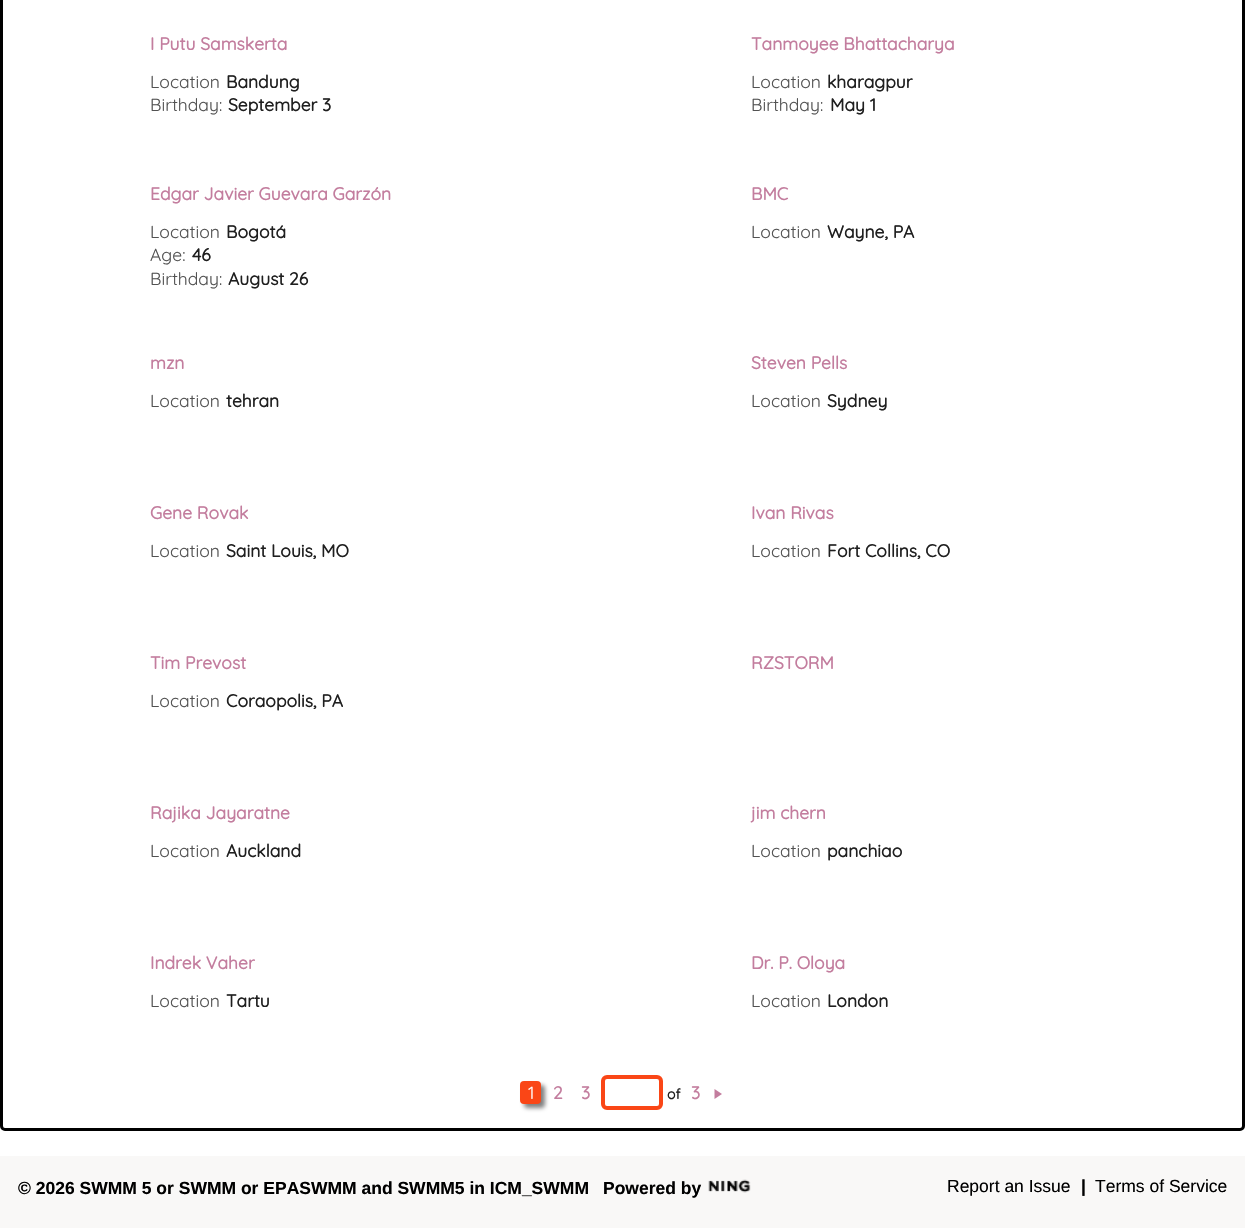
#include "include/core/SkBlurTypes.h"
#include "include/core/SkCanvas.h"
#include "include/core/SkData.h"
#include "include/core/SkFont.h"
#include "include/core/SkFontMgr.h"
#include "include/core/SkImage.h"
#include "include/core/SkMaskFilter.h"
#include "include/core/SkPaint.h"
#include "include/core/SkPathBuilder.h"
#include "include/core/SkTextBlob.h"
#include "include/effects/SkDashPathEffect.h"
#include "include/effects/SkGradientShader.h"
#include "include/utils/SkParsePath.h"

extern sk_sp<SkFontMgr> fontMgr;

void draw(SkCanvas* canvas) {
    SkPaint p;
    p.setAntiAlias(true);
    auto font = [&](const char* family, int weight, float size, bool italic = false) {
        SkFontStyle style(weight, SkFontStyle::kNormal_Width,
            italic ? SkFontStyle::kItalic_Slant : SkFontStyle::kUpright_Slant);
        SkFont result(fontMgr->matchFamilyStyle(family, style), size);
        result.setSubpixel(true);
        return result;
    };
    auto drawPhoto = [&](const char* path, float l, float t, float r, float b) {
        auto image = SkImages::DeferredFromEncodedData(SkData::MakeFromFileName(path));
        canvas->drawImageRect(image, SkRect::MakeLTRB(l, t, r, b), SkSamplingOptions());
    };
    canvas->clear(0xFFF9F8F7);
    p.setColor(0xFFFFFFFF);
    canvas->drawRect(SkRect::MakeLTRB(0, 0, 1245, 1156), p);
    p.setStyle(SkPaint::kStroke_Style);
    p.setStrokeWidth(3);
    p.setColor(0xFF000000);
    canvas->drawRoundRect(SkRect::MakeLTRB(1.5f, -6.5f, 1243.5f, 1129.5f), 3.5f, 3.5f, p);
    auto font1 = font("Quicksand", 700, 17.5f);
    p.setStyle(SkPaint::kFill_Style);
    p.setColor(0xFFC37D9E);
    canvas->drawString("I Putu Samskerta", 150, 50, font1, p);
    auto font2 = font("Quicksand", 300, 17.5f);
    p.setColor(0xFF525252);
    canvas->drawString("Location", 150, 88, font2, p);
    p.setColor(0xFF1F1F1F);
    canvas->drawString("Bandung", 226, 88, font1, p);
    p.setColor(0xFF525252);
    canvas->drawString("Birthday:", 150, 111, font2, p);
    p.setColor(0xFF1F1F1F);
    canvas->drawString("September 3", 228, 111, font1, p);
    p.setColor(0xFFC37D9E);
    canvas->drawString("Tanmoyee Bhattacharya", 751, 50, font1, p);
    p.setColor(0xFF525252);
    canvas->drawString("Location", 751, 88, font2, p);
    p.setColor(0xFF1F1F1F);
    canvas->drawString("kharagpur", 827, 88, font1, p);
    p.setColor(0xFF525252);
    canvas->drawString("Birthday:", 751, 111, font2, p);
    p.setColor(0xFF1F1F1F);
    canvas->drawString("May 1", 830, 111, font1, p);
    p.setColor(0xFFC37D9E);
    canvas->drawString("Edgar Javier Guevara Garzón", 150, 200, font1, p);
    p.setColor(0xFF525252);
    canvas->drawString("Location", 150, 238, font2, p);
    p.setColor(0xFF1F1F1F);
    canvas->drawString("Bogotá", 226, 238, font1, p);
    p.setColor(0xFF525252);
    canvas->drawString("Age:", 150, 261, font2, p);
    p.setColor(0xFF1F1F1F);
    canvas->drawString("46", 192, 261, font1, p);
    p.setColor(0xFF525252);
    canvas->drawString("Birthday:", 150, 285, font2, p);
    p.setColor(0xFF1F1F1F);
    canvas->drawString("August 26", 228, 285, font1, p);
    p.setColor(0xFFC37D9E);
    canvas->drawString("BMC", 751, 200, font1, p);
    p.setColor(0xFF525252);
    canvas->drawString("Location", 751, 238, font2, p);
    p.setColor(0xFF1F1F1F);
    canvas->drawString("Wayne, PA", 827, 238, font1, p);
    p.setColor(0xFFC37D9E);
    canvas->drawString("mzn", 150, 369, font1, p);
    p.setColor(0xFF525252);
    canvas->drawString("Location", 150, 407, font2, p);
    p.setColor(0xFF1F1F1F);
    canvas->drawString("tehran", 226, 407, font1, p);
    p.setColor(0xFFC37D9E);
    canvas->drawString("Steven Pells", 751, 369, font1, p);
    p.setColor(0xFF525252);
    canvas->drawString("Location", 751, 407, font2, p);
    p.setColor(0xFF1F1F1F);
    canvas->drawString("Sydney", 827, 407, font1, p);
    p.setColor(0xFFC37D9E);
    canvas->drawString("Gene Rovak", 150, 519, font1, p);
    p.setColor(0xFF525252);
    canvas->drawString("Location", 150, 557, font2, p);
    p.setColor(0xFF1F1F1F);
    canvas->drawString("Saint Louis, MO", 226, 557, font1, p);
    p.setColor(0xFFC37D9E);
    canvas->drawString("Ivan Rivas", 751, 519, font1, p);
    p.setColor(0xFF525252);
    canvas->drawString("Location", 751, 557, font2, p);
    p.setColor(0xFF1F1F1F);
    canvas->drawString("Fort Collins, CO", 827, 557, font1, p);
    p.setColor(0xFFC37D9E);
    canvas->drawString("Tim Prevost", 150, 669, font1, p);
    p.setColor(0xFF525252);
    canvas->drawString("Location", 150, 707, font2, p);
    p.setColor(0xFF1F1F1F);
    canvas->drawString("Coraopolis, PA", 226, 707, font1, p);
    p.setColor(0xFFC37D9E);
    canvas->drawString("RZSTORM", 751, 669, font1, p);
    canvas->drawString("Rajika Jayaratne", 150, 819, font1, p);
    p.setColor(0xFF525252);
    canvas->drawString("Location", 150, 857, font2, p);
    p.setColor(0xFF1F1F1F);
    canvas->drawString("Auckland", 226, 857, font1, p);
    p.setColor(0xFFC37D9E);
    canvas->drawString("jim chern", 751, 819, font1, p);
    p.setColor(0xFF525252);
    canvas->drawString("Location", 751, 857, font2, p);
    p.setColor(0xFF1F1F1F);
    canvas->drawString("panchiao", 827, 857, font1, p);
    p.setColor(0xFFC37D9E);
    canvas->drawString("Indrek Vaher", 150, 969, font1, p);
    p.setColor(0xFF525252);
    canvas->drawString("Location", 150, 1007, font2, p);
    p.setColor(0xFF1F1F1F);
    canvas->drawString("Tartu", 226, 1007, font1, p);
    p.setColor(0xFFC37D9E);
    canvas->drawString("Dr. P. Oloya", 751, 969, font1, p);
    p.setColor(0xFF525252);
    canvas->drawString("Location", 751, 1007, font2, p);
    p.setColor(0xFF1F1F1F);
    canvas->drawString("London", 827, 1007, font1, p);
    p.setColor(0xFF808080);
    p.setMaskFilter(SkMaskFilter::MakeBlur(kNormal_SkBlurStyle, 2));
    canvas->drawRoundRect(SkRect::MakeLTRB(524, 1085, 545, 1108), 4, 4, p);
    p.setMaskFilter(nullptr);
    p.setColor(0xFFFA4616);
    canvas->drawRoundRect(SkRect::MakeLTRB(520, 1081, 541, 1104), 4, 4, p);
    p.setColor(0xFFFFFFFF);
    canvas->drawString("1", 528, 1099, font2, p);
    p.setColor(0xFFC37D9E);
    canvas->drawString("2", 553, 1099, font1, p);
    canvas->drawString("3", 581, 1099, font1, p);
    p.setStyle(SkPaint::kStroke_Style);
    p.setStrokeWidth(4);
    p.setColor(0xFFFA4616);
    canvas->drawRoundRect(SkRect::MakeLTRB(603, 1077, 661, 1108), 4, 4, p);
    auto font3 = font("Quicksand", 700, 14);
    p.setStyle(SkPaint::kFill_Style);
    p.setColor(0xFF1F1F1F);
    canvas->drawString("of", 667, 1099, font3, p);
    p.setColor(0xFFC37D9E);
    canvas->drawString("3", 691, 1099, font1, p);
    canvas->drawPath(SkPathBuilder().moveTo(722, 1094).lineTo(714.5f, 1099).lineTo(714.5f, 1089).close().detach(), p);
    auto font4 = font("Liberation Sans", 700, 17.5f);
    p.setColor(0xFF000000);
    canvas->drawString("© 2026 SWMM 5 or SWMM or EPASWMM and SWMM5 in ICM_SWMM", 18, 1194, font4, p);
    canvas->drawString("Powered by", 603, 1194, font4, p);
    drawPhoto("media/1.png", 708, 1179, 751, 1193);
    auto font5 = font("Liberation Sans", 400, 17.5f);
    canvas->drawString("Report an Issue", 947, 1192, font5, p);
    canvas->drawString("|", 1081, 1192, font4, p);
    canvas->drawString("Terms of Service", 1095, 1192, font5, p);
}
